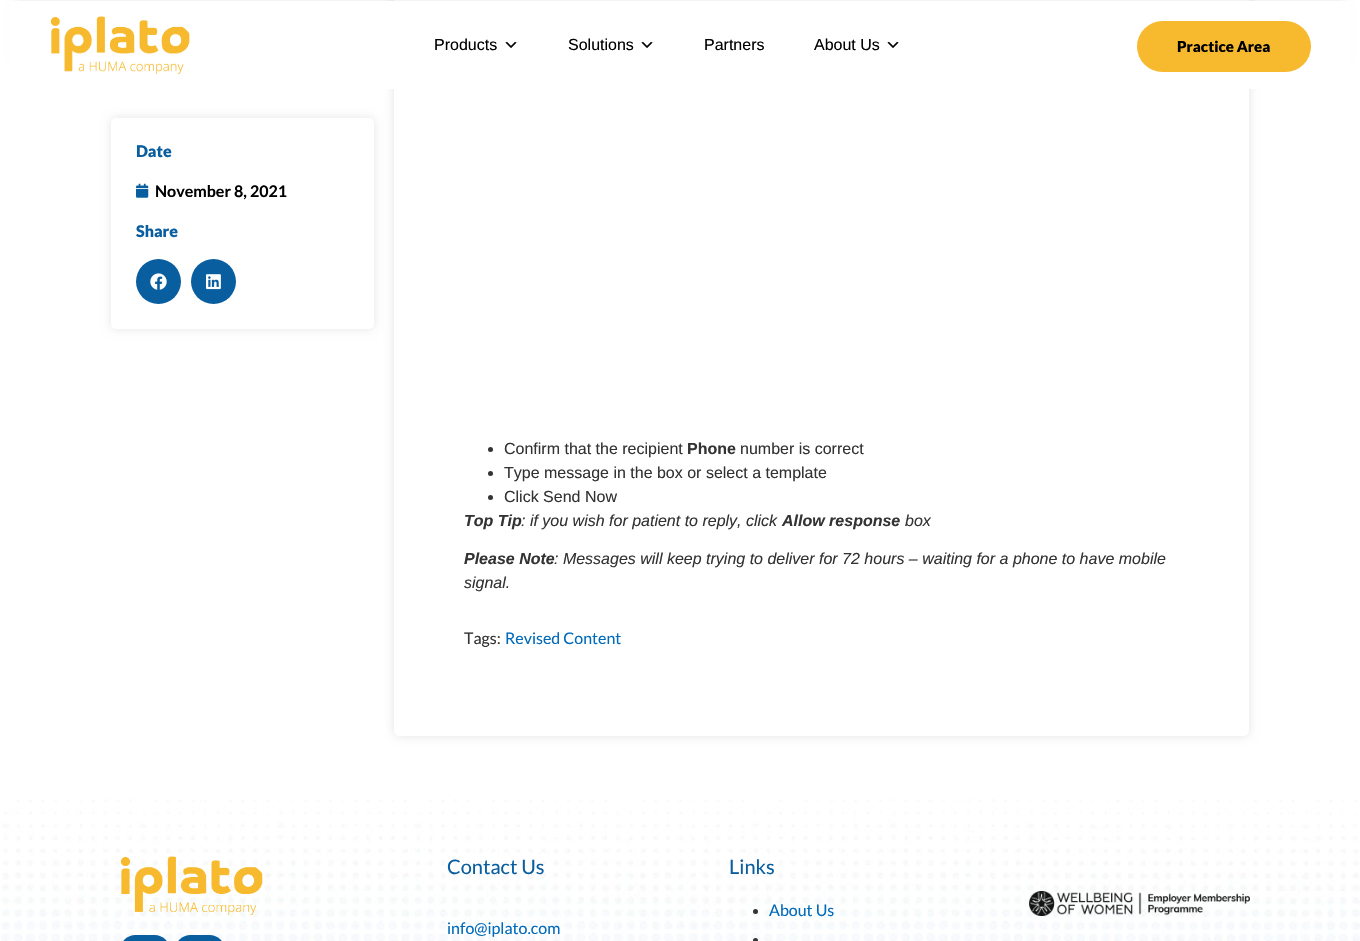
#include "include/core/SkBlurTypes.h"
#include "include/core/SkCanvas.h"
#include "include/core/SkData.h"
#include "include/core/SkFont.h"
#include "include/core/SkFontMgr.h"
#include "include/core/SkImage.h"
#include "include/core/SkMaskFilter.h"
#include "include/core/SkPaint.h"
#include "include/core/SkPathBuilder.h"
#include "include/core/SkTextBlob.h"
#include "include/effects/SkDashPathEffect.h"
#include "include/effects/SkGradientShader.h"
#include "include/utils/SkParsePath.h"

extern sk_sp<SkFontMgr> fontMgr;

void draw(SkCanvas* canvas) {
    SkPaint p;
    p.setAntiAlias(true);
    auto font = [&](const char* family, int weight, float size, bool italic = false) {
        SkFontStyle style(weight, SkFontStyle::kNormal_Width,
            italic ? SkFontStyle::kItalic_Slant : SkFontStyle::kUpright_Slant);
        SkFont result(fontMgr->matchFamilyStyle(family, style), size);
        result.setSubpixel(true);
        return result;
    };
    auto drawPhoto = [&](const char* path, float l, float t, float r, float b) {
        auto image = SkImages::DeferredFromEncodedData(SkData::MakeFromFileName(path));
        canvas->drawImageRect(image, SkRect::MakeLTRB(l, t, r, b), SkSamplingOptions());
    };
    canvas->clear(0xFFFFFFFF);
    p.setColor(0x1C000000);
    p.setMaskFilter(SkMaskFilter::MakeBlur(kNormal_SkBlurStyle, 5));
    canvas->drawRoundRect(SkRect::MakeLTRB(394, -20, 1249, 736), 5, 5, p);
    p.setMaskFilter(nullptr);
    p.setColor(0xFFFFFFFF);
    canvas->drawRoundRect(SkRect::MakeLTRB(394, -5, 1249, 736), 5, 5, p);
    p.setColor(0x3B000000);
    p.setMaskFilter(SkMaskFilter::MakeBlur(kNormal_SkBlurStyle, 4));
    canvas->drawRect(SkRect::MakeLTRB(16, 4, 1344, 60), p);
    p.setMaskFilter(nullptr);
    p.setColor(0xFFFFFFFF);
    canvas->drawRect(SkRect::MakeLTRB(9, 1, 1351, 89), p);
    drawPhoto("media/1.png", 50, 16, 190, 74);
    auto font1 = font("Liberation Sans", 400, 16);
    p.setColor(0xFF000000);
    canvas->drawString("Products", 434, 50, font1, p);
    drawPhoto("media/2.png", 505, 41, 517, 48);
    canvas->drawString("Solutions", 568, 50, font1, p);
    drawPhoto("media/2.png", 641, 41, 653, 48);
    canvas->drawString("Partners", 704, 50, font1, p);
    canvas->drawString("About Us", 814, 50, font1, p);
    drawPhoto("media/2.png", 887, 41, 899, 48);
    p.setColor(0xFFF7BA2F);
    canvas->drawRoundRect(SkRect::MakeLTRB(1137, 21, 1311, 72), 25.5f, 25.5f, p);
    auto font2 = font("Lato", 900, 15);
    p.setColor(0xFF000000);
    canvas->drawString("Practice Area", 1177, 52, font2, p);
    p.setColor(0x1A000000);
    p.setMaskFilter(SkMaskFilter::MakeBlur(kNormal_SkBlurStyle, 5));
    canvas->drawRoundRect(SkRect::MakeLTRB(111, 118, 374, 329), 5, 5, p);
    p.setMaskFilter(nullptr);
    p.setColor(0xFFFFFFFF);
    canvas->drawRoundRect(SkRect::MakeLTRB(111, 118, 374, 329), 5, 5, p);
    auto font3 = font("Lato", 900, 16);
    p.setColor(0xFF095E9F);
    canvas->drawString("Date", 136, 157, font3, p);
    drawPhoto("media/3.png", 136, 183, 149, 198);
    auto font4 = font("Lato", 700, 16);
    p.setColor(0xFF000000);
    canvas->drawString("November 8, 2021", 155, 197, font4, p);
    p.setColor(0xFF095E9F);
    canvas->drawString("Share", 136, 237, font3, p);
    canvas->drawCircle(158.5f, 281.5f, 22.5f, p);
    drawPhoto("media/4.png", 150, 273, 167, 290);
    canvas->drawCircle(213.5f, 281.5f, 22.5f, p);
    drawPhoto("media/5.png", 206, 274, 221, 290);
    p.setColor(0xFF333333);
    canvas->drawCircle(490.5f, 449.5f, 2.5f, p);
    canvas->drawString("Confirm that the recipient", 504, 454, font1, p);
    auto font5 = font("Liberation Sans", 700, 16);
    canvas->drawString("Phone", 687, 454, font5, p);
    canvas->drawString("number is correct", 740, 454, font1, p);
    canvas->drawCircle(490.5f, 473.5f, 2.5f, p);
    canvas->drawString("Type message in the box or select a template", 504, 478, font1, p);
    canvas->drawCircle(490.5f, 497.5f, 2.5f, p);
    canvas->drawString("Click Send Now", 504, 502, font1, p);
    auto font6 = font("Liberation Sans", 700, 16, true);
    canvas->drawString("Top Tip", 464, 526, font6, p);
    auto font7 = font("Liberation Sans", 400, 16, true);
    canvas->drawString(": if you wish for patient to reply, click", 521, 526, font7, p);
    canvas->drawString("Allow response", 782, 526, font6, p);
    canvas->drawString("box", 905, 526, font7, p);
    canvas->drawString("Please Note", 464, 564, font6, p);
    canvas->drawString(": Messages will keep trying to deliver for 72 hours – waiting for a phone to have mobile", 554, 564, font7, p);
    canvas->drawString("signal.", 464, 588, font7, p);
    auto font8 = font("Lato", 400, 16);
    canvas->drawString("Tags:", 464, 644, font8, p);
    p.setColor(0xFF006ABB);
    canvas->drawString("Revised Content", 505, 644, font8, p);
    drawPhoto("media/6.png", 1, 799, 1360, 941);
    drawPhoto("media/7.png", 120, 856, 263, 915);
    p.setColor(0xFF095E9F);
    canvas->drawRoundRect(SkRect::MakeLTRB(120, 935, 170, 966), 25, 25, p);
    canvas->drawRoundRect(SkRect::MakeLTRB(175, 935, 225, 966), 25, 25, p);
    auto font9 = font("Lato", 400, 20);
    canvas->drawString("Contact Us", 447, 874, font9, p);
    p.setColor(0xFF006ABB);
    canvas->drawString("info@iplato.com", 447, 934, font8, p);
    p.setColor(0xFF095E9F);
    canvas->drawString("Links", 729, 874, font9, p);
    p.setColor(0xFF333333);
    canvas->drawCircle(755.5f, 911.5f, 2.5f, p);
    p.setColor(0xFF006ABB);
    canvas->drawString("About Us", 769, 916, font8, p);
    p.setColor(0xFF333333);
    canvas->drawCircle(755.5f, 940.5f, 2.5f, p);
    drawPhoto("media/8.png", 1029, 891, 1250, 916);
}
